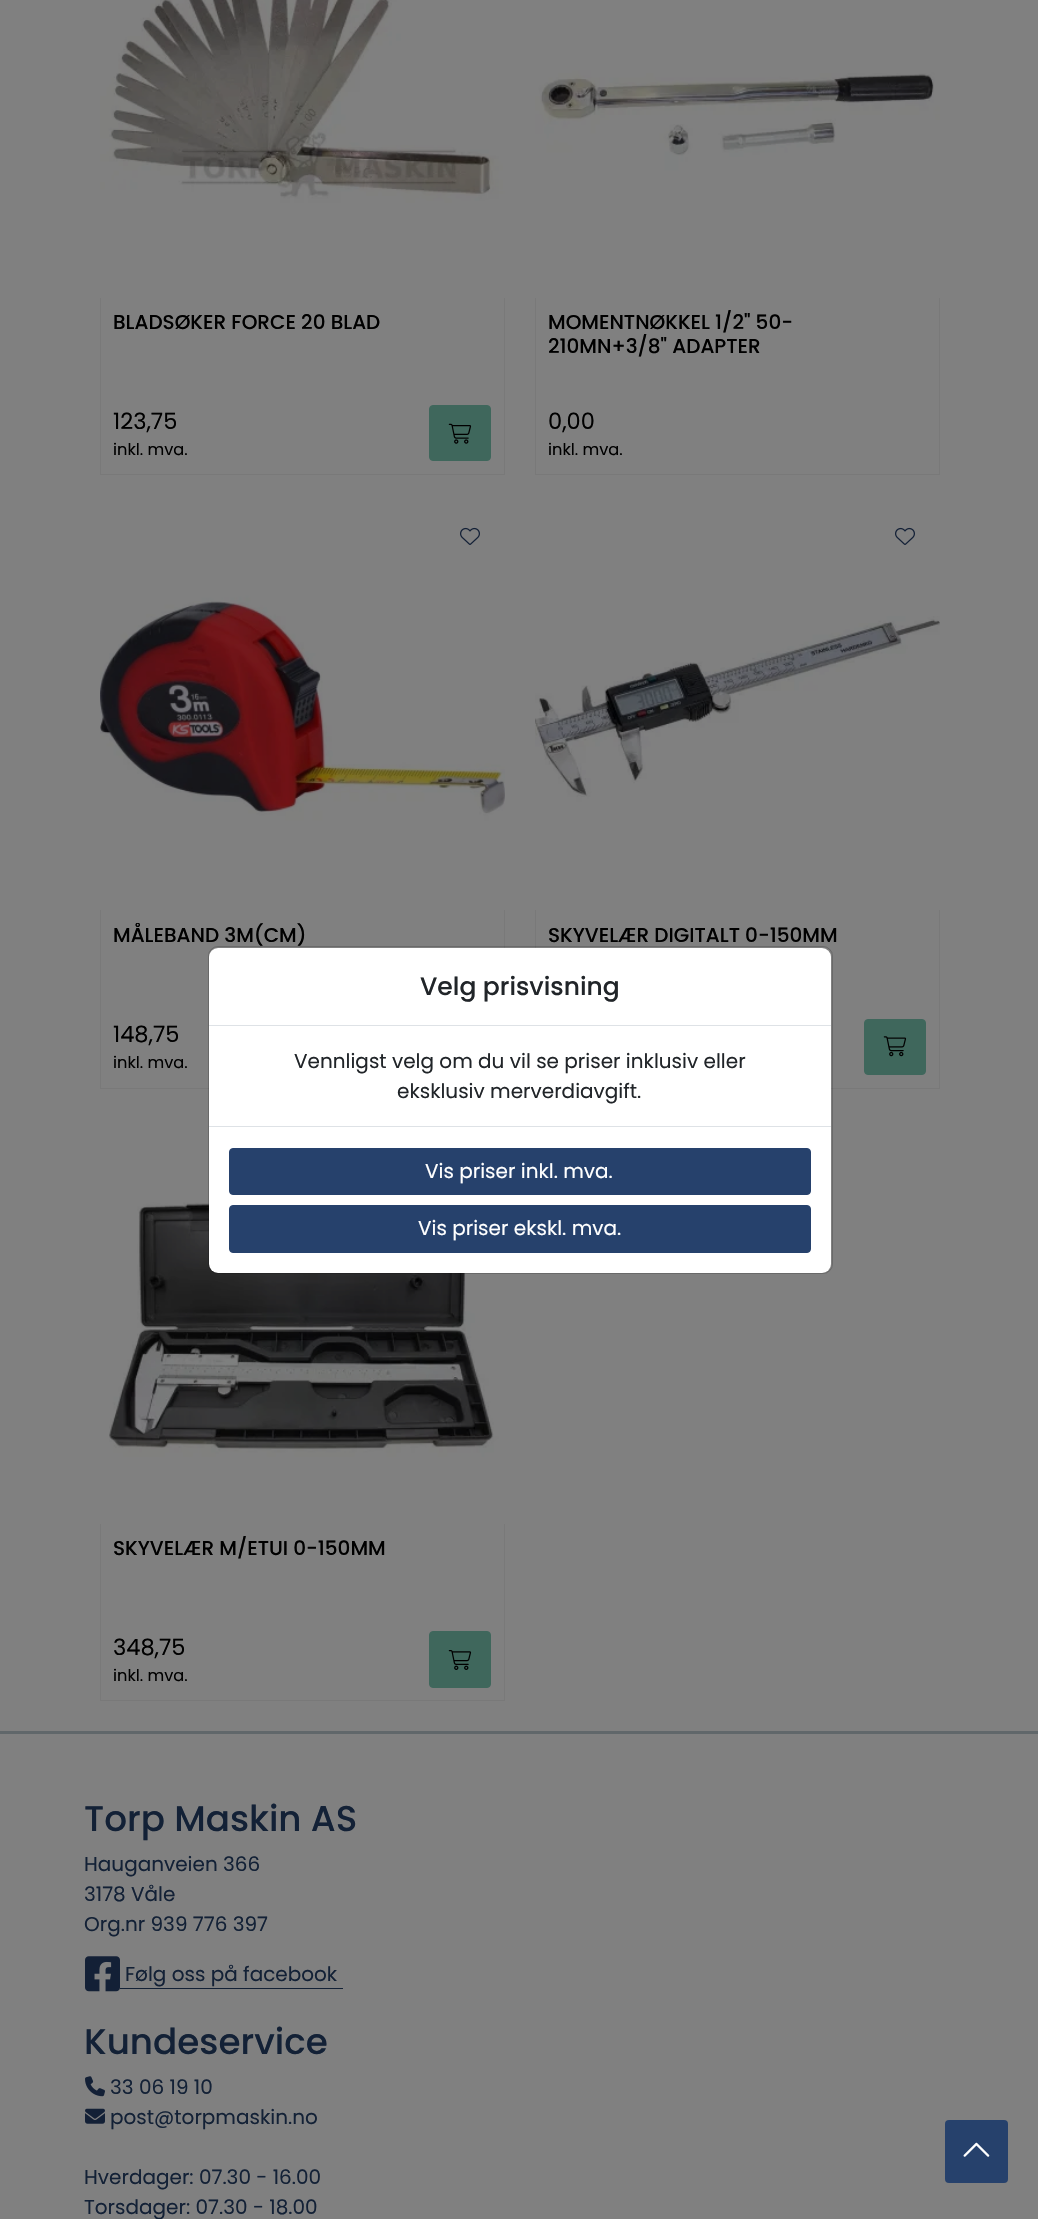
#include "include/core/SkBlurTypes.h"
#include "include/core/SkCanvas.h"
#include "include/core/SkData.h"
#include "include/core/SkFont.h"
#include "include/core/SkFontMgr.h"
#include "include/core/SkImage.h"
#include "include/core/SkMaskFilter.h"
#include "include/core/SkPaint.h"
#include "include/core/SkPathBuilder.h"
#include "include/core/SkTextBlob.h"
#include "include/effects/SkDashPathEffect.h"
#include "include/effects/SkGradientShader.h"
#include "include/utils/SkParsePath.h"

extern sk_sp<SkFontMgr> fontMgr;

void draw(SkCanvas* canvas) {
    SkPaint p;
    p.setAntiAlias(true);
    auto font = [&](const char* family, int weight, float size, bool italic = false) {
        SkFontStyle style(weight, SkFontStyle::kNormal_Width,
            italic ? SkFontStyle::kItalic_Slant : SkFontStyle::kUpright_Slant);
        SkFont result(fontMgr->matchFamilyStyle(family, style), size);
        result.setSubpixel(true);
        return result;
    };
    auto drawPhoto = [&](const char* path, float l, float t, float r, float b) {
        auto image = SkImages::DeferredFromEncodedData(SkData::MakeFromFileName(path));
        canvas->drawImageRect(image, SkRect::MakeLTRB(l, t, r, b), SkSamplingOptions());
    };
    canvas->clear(0xFF808080);
    drawPhoto("media/1.png", 100, 0, 505, 298);
    p.setColor(0xFF797979);
    canvas->drawPath(SkPathBuilder().moveTo(505, 298).lineTo(505, 475).lineTo(504, 474).lineTo(504, 298).close().detach(), p);
    p.setColor(0x0D000000);
    canvas->drawPath(SkPathBuilder().moveTo(505, 475).lineTo(100, 475).lineTo(101, 474).lineTo(504, 474).close().detach(), p);
    canvas->drawPath(SkPathBuilder().moveTo(100, 475).lineTo(100, 298).lineTo(101, 298).lineTo(101, 474).close().detach(), p);
    auto font1 = font("Poppins", 500, 20);
    p.setColor(0xFF000000);
    canvas->drawString("BLADSØKER FORCE 20 BLAD", 113, 329, font1, p);
    auto font2 = font("Poppins", 400, 22.5f);
    canvas->drawString("123,75", 113, 429, font2, p);
    auto font3 = font("Poppins", 400, 16.25f);
    canvas->drawString("inkl. mva.", 113, 455, font3, p);
    p.setColor(0xFF3F675C);
    canvas->drawRoundRect(SkRect::MakeLTRB(429.5f, 405.5f, 490.5f, 460.5f), 3.5f, 3.5f, p);
    p.setStyle(SkPaint::kStroke_Style);
    p.setStrokeWidth(1);
    canvas->drawRoundRect(SkRect::MakeLTRB(429.5f, 405.5f, 490.5f, 460.5f), 3.5f, 3.5f, p);
    drawPhoto("media/2.png", 448, 423, 472, 444);
    drawPhoto("media/3.png", 535, 0, 940, 298);
    p.setStyle(SkPaint::kFill_Style);
    p.setColor(0xFF797979);
    canvas->drawPath(SkPathBuilder().moveTo(940, 298).lineTo(940, 475).lineTo(939, 474).lineTo(939, 298).close().detach(), p);
    p.setColor(0x0D000000);
    canvas->drawPath(SkPathBuilder().moveTo(940, 475).lineTo(535, 475).lineTo(536, 474).lineTo(939, 474).close().detach(), p);
    canvas->drawPath(SkPathBuilder().moveTo(535, 475).lineTo(535, 298).lineTo(536, 298).lineTo(536, 474).close().detach(), p);
    p.setColor(0xFF000000);
    canvas->drawString("MOMENTNØKKEL 1/2\" 50-", 548, 329, font1, p);
    canvas->drawString("210MN+3/8\" ADAPTER", 548, 353, font1, p);
    canvas->drawString("0,00", 548, 429, font2, p);
    canvas->drawString("inkl. mva.", 548, 455, font3, p);
    drawPhoto("media/4.png", 100, 505, 505, 910);
    p.setColor(0xFF797979);
    canvas->drawPath(SkPathBuilder().moveTo(505, 910).lineTo(505, 1089).lineTo(504, 1088).lineTo(504, 910).close().detach(), p);
    p.setColor(0x0D000000);
    canvas->drawPath(SkPathBuilder().moveTo(505, 1089).lineTo(100, 1089).lineTo(101, 1088).lineTo(504, 1088).close().detach(), p);
    canvas->drawPath(SkPathBuilder().moveTo(100, 1089).lineTo(100, 910).lineTo(101, 910).lineTo(101, 1088).close().detach(), p);
    drawPhoto("media/5.png", 460, 527, 480, 545);
    canvas->save();
    canvas->clipRect(SkRect::MakeLTRB(114, 923, 306, 991));
    p.setColor(0xFF000000);
    canvas->drawString("MÅLEBAND 3M(CM)", 113, 942, font1, p);
    canvas->restore();
    canvas->drawString("148,75", 113, 1042, font2, p);
    canvas->drawString("inkl. mva.", 113, 1068, font3, p);
    drawPhoto("media/6.png", 535, 505, 940, 910);
    p.setColor(0xFF797979);
    canvas->drawPath(SkPathBuilder().moveTo(940, 910).lineTo(940, 1089).lineTo(939, 1088).lineTo(939, 910).close().detach(), p);
    p.setColor(0x0D000000);
    canvas->drawPath(SkPathBuilder().moveTo(940, 1089).lineTo(535, 1089).lineTo(536, 1088).lineTo(939, 1088).close().detach(), p);
    canvas->drawPath(SkPathBuilder().moveTo(535, 1089).lineTo(535, 910).lineTo(536, 910).lineTo(536, 1088).close().detach(), p);
    drawPhoto("media/5.png", 895, 527, 915, 545);
    p.setColor(0xFF000000);
    canvas->drawString("SKYVELÆR DIGITALT 0-150MM", 548, 942, font1, p);
    p.setColor(0xFF3F675C);
    canvas->drawRoundRect(SkRect::MakeLTRB(864.5f, 1019.5f, 925.5f, 1074.5f), 3.5f, 3.5f, p);
    p.setStyle(SkPaint::kStroke_Style);
    canvas->drawRoundRect(SkRect::MakeLTRB(864.5f, 1019.5f, 925.5f, 1074.5f), 3.5f, 3.5f, p);
    drawPhoto("media/7.png", 883, 1036, 907, 1057);
    drawPhoto("media/8.png", 100, 1119, 505, 1524);
    p.setStyle(SkPaint::kFill_Style);
    p.setColor(0xFF797979);
    canvas->drawPath(SkPathBuilder().moveTo(505, 1524).lineTo(505, 1701).lineTo(504, 1700).lineTo(504, 1524).close().detach(), p);
    p.setColor(0x0D000000);
    canvas->drawPath(SkPathBuilder().moveTo(505, 1701).lineTo(100, 1701).lineTo(101, 1700).lineTo(504, 1700).close().detach(), p);
    canvas->drawPath(SkPathBuilder().moveTo(100, 1701).lineTo(100, 1524).lineTo(101, 1524).lineTo(101, 1700).close().detach(), p);
    p.setColor(0xFF000000);
    canvas->drawString("SKYVELÆR M/ETUI 0-150MM", 113, 1555, font1, p);
    canvas->drawString("348,75", 113, 1655, font2, p);
    canvas->drawString("inkl. mva.", 113, 1681, font3, p);
    p.setColor(0xFF3F675C);
    canvas->drawRoundRect(SkRect::MakeLTRB(429.5f, 1631.5f, 490.5f, 1687.5f), 3.5f, 3.5f, p);
    p.setStyle(SkPaint::kStroke_Style);
    canvas->drawRoundRect(SkRect::MakeLTRB(429.5f, 1631.5f, 490.5f, 1687.5f), 3.5f, 3.5f, p);
    drawPhoto("media/9.png", 448, 1650, 472, 1670);
    p.setStyle(SkPaint::kFill_Style);
    p.setColor(0xFF26416C);
    canvas->drawRoundRect(SkRect::MakeLTRB(945, 2120, 1008, 2183), 4, 4, p);
    drawPhoto("media/10.png", 963, 2142, 990, 2157);
    p.setColor(0xFFFFFFFF);
    canvas->drawRoundRect(SkRect::MakeLTRB(209, 948, 831, 1273), 9, 9, p);
    p.setStyle(SkPaint::kStroke_Style);
    p.setColor(0x2E000000);
    canvas->drawRoundRect(SkRect::MakeLTRB(208.5f, 946.5f, 832.5f, 1273.5f), 9.5f, 9.5f, p);
    p.setStyle(SkPaint::kFill_Style);
    p.setColor(0xFFDEE2E6);
    canvas->drawRect(SkRect::MakeLTRB(209, 1025, 831, 1026), p);
    auto font4 = font("Poppins", 500, 25);
    p.setColor(0xFF212529);
    canvas->drawString("Velg prisvisning", 420, 995, font4, p);
    auto font5 = font("Poppins", 400, 20);
    canvas->drawString("Vennligst velg om du vil se priser inklusiv eller", 294, 1068, font5, p);
    canvas->drawString("eksklusiv merverdiavgift.", 397, 1098, font5, p);
    p.setColor(0xFFDEE2E6);
    canvas->drawRect(SkRect::MakeLTRB(209, 1126, 831, 1127), p);
    p.setColor(0xFF26416C);
    canvas->drawRoundRect(SkRect::MakeLTRB(229.5f, 1148.5f, 810.5f, 1194.5f), 3.5f, 3.5f, p);
    p.setStyle(SkPaint::kStroke_Style);
    canvas->drawRoundRect(SkRect::MakeLTRB(229.5f, 1148.5f, 810.5f, 1194.5f), 3.5f, 3.5f, p);
    p.setStyle(SkPaint::kFill_Style);
    p.setColor(0xFFFFFFFF);
    canvas->drawString("Vis priser inkl. mva.", 425, 1178, font5, p);
    p.setColor(0xFF26416C);
    canvas->drawRoundRect(SkRect::MakeLTRB(229.5f, 1205.5f, 810.5f, 1252.5f), 3.5f, 3.5f, p);
    p.setStyle(SkPaint::kStroke_Style);
    canvas->drawRoundRect(SkRect::MakeLTRB(229.5f, 1205.5f, 810.5f, 1252.5f), 3.5f, 3.5f, p);
    p.setStyle(SkPaint::kFill_Style);
    p.setColor(0xFFFFFFFF);
    canvas->drawString("Vis priser ekskl. mva.", 418, 1235, font5, p);
    p.setColor(0xFF60676A);
    canvas->drawRect(SkRect::MakeLTRB(0, 1731, 1038, 1734), p);
    auto font6 = font("Poppins", 500, 35.75f);
    p.setColor(0xFF132136);
    canvas->drawString("Torp Maskin AS", 84, 1831, font6, p);
    {
        const struct { const char* s; float x, y; } items[] = {
            {"Hauganveien 366", 84, 1871},
            {"3178 Våle", 84, 1901},
            {"Org.nr 939 776 397", 84, 1931},
        };
        for (auto [s, x, y] : items) {
            canvas->drawString(s, x, y, font5, p);
        }
    }
    drawPhoto("media/11.png", 85, 1956, 120, 1992);
    canvas->drawString("Følg oss på facebook", 125, 1981, font5, p);
    canvas->drawRect(SkRect::MakeLTRB(120, 1988, 343, 1989), p);
    canvas->drawString("Kundeservice", 84, 2054, font6, p);
    drawPhoto("media/12.png", 85, 2076, 105, 2097);
    canvas->drawString("33 06 19 10", 110, 2094, font5, p);
    drawPhoto("media/13.png", 85, 2108, 105, 2124);
    {
        const struct { const char* s; float x, y; } items[] = {
            {"post@torpmaskin.no", 110, 2124},
            {"Hverdager: 07.30 - 16.00", 84, 2184},
            {"Torsdager: 07.30 - 18.00", 84, 2214},
        };
        for (auto [s, x, y] : items) {
            canvas->drawString(s, x, y, font5, p);
        }
    }
}
